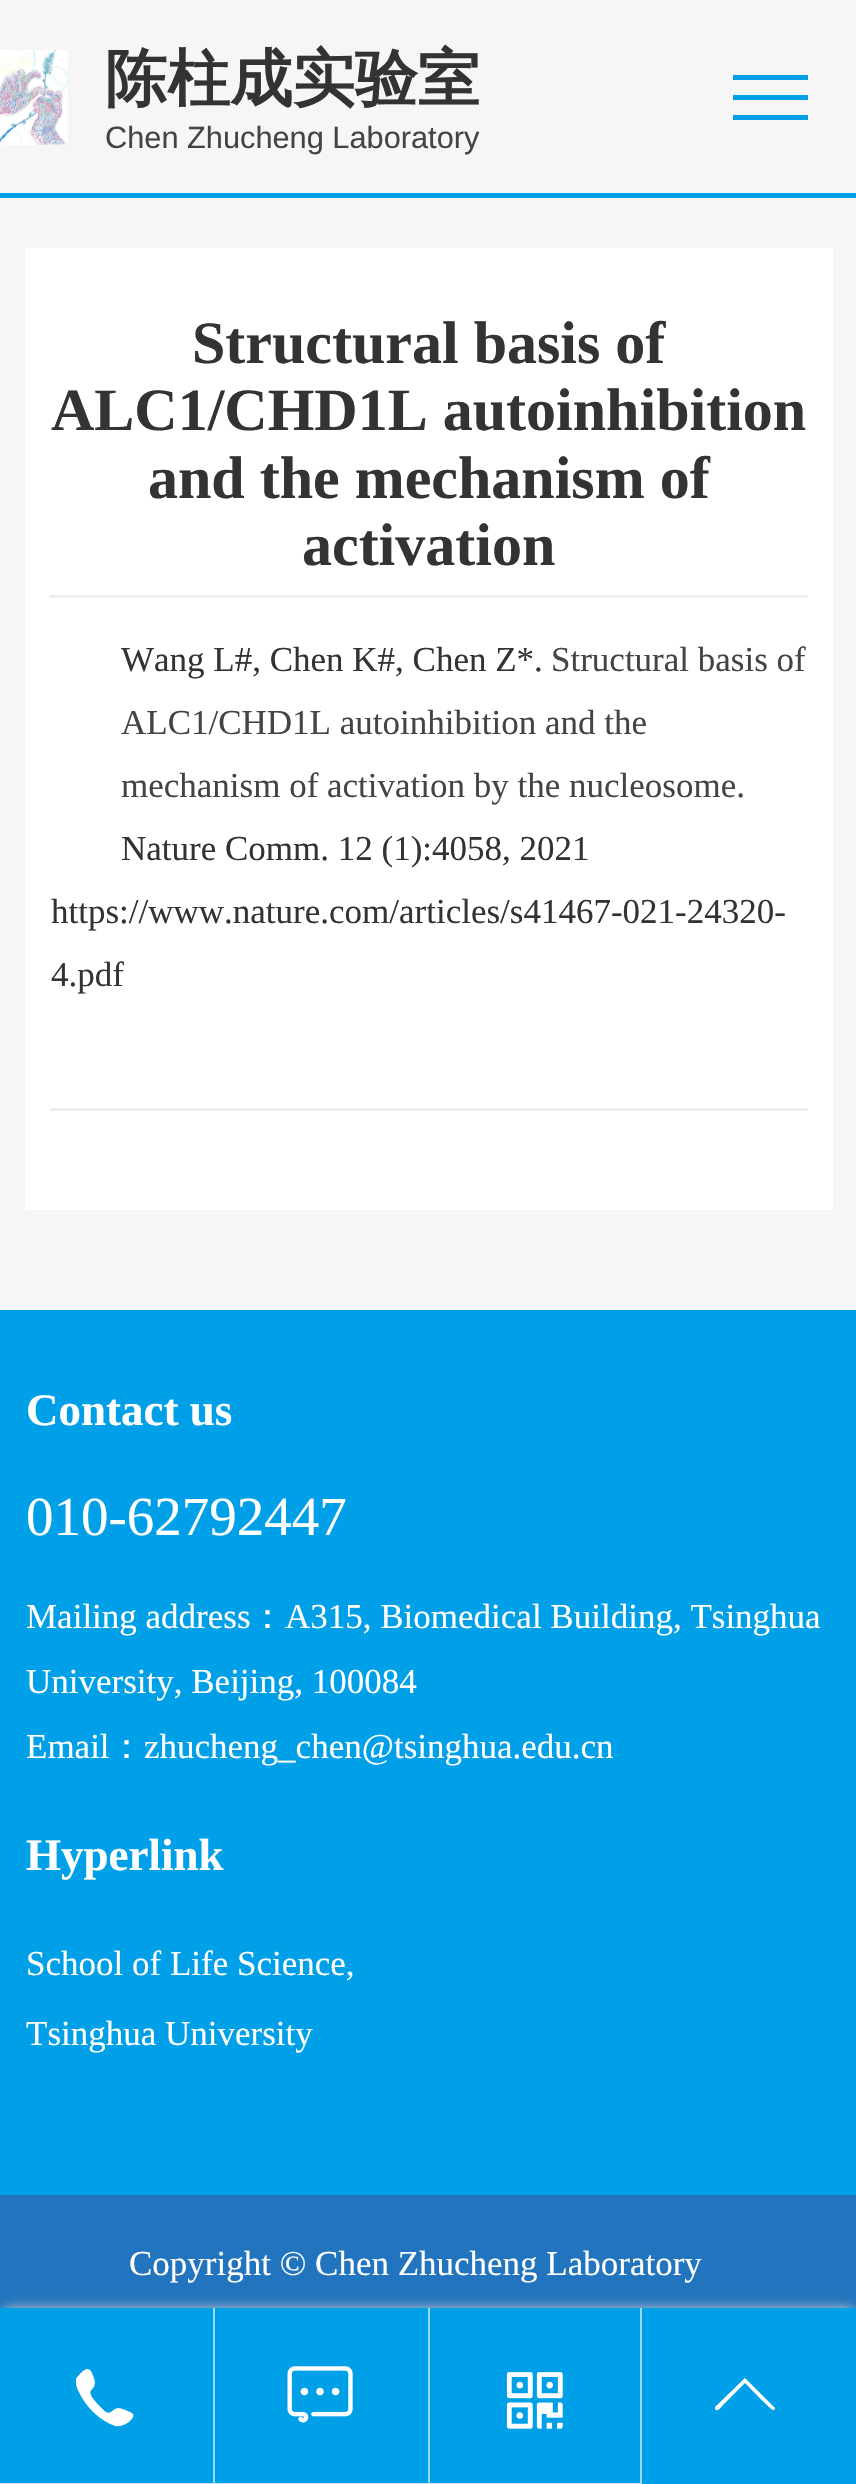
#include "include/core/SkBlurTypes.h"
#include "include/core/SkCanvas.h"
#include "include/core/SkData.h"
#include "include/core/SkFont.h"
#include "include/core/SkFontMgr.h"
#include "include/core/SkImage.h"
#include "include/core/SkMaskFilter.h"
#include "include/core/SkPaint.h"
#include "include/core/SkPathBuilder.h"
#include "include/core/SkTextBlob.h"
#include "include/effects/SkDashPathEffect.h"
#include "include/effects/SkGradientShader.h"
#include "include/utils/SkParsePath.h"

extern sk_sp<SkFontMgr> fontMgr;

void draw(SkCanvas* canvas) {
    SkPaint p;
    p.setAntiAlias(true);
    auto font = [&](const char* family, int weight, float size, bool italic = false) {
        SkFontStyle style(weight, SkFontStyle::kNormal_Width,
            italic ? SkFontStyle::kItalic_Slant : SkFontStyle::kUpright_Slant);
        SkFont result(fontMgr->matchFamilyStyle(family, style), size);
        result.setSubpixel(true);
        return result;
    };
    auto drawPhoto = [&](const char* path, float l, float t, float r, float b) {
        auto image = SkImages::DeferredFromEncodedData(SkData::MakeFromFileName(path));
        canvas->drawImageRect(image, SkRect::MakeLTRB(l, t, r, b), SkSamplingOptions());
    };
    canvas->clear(0xFFF6F6F6);
    p.setColor(0xFF00A0E9);
    canvas->drawRect(SkRect::MakeLTRB(0, 193, 856, 198), p);
    drawPhoto("media/1.png", 0, 50, 68, 145);
    auto font1 = font("WenQuanYi Zen Hei", 700, 62.5f);
    p.setColor(0xFF333333);
    canvas->drawString("陈柱成实验室", 105, 100, font1, p);
    auto font2 = font("Liberation Sans", 400, 30.75f);
    p.setColor(0xFF444444);
    canvas->drawString("Chen Zhucheng Laboratory", 105, 148, font2, p);
    {
        const struct { float l, t, r, b; SkColor color; } items[] = {
            {733, 75, 808, 80, 0xFF00A0E9},
            {733, 95, 808, 100, 0xFF00A0E9},
            {733, 115, 808, 120, 0xFF00A0E9},
            {25, 248, 833, 1210, 0xFFFFFFFF},
            {50, 595, 808, 598, 0xFFEEEEEE},
        };
        for (auto [l, t, r, b, color] : items) {
            p.setColor(color);
            canvas->drawRect(SkRect::MakeLTRB(l, t, r, b), p);
        }
    }
    auto font3 = font("Liberation Serif", 700, 60);
    p.setColor(0xFF333333);
    {
        const struct { const char* s; float x, y; } items[] = {
            {"Structural basis of", 192, 363},
            {"ALC1/CHD1L autoinhibition", 51, 430},
            {"and the mechanism of", 148, 498},
            {"activation", 302, 565},
        };
        for (auto [s, x, y] : items) {
            canvas->drawString(s, x, y, font3, p);
        }
    }
    p.setColor(0xFFEEEEEE);
    canvas->drawRect(SkRect::MakeLTRB(50, 1108, 808, 1111), p);
    auto font4 = font("Liberation Serif", 400, 35);
    p.setColor(0xFF333333);
    canvas->drawString("Wang L#, Chen K#, Chen Z*.", 121, 671, font4, p);
    p.setColor(0xFF444444);
    {
        const struct { const char* s; float x, y; } items[] = {
            {"Structural basis of", 551, 671},
            {"ALC1/CHD1L autoinhibition and the", 121, 734},
            {"mechanism of activation by the nucleosome.", 121, 797},
        };
        for (auto [s, x, y] : items) {
            canvas->drawString(s, x, y, font4, p);
        }
    }
    p.setColor(0xFF333333);
    {
        const struct { const char* s; float x, y; } items[] = {
            {"Nature Comm. 12 (1):4058, 2021", 121, 860},
            {"https://www.nature.com/articles/s41467-021-24320-", 51, 923},
            {"4.pdf", 51, 986},
        };
        for (auto [s, x, y] : items) {
            canvas->drawString(s, x, y, font4, p);
        }
    }
    p.setColor(0xFF00A0E9);
    canvas->drawRect(SkRect::MakeLTRB(0, 1310, 856, 2195), p);
    auto font5 = font("Liberation Serif", 700, 45);
    p.setColor(0xFFFFFFFF);
    canvas->drawString("Contact us", 26, 1425, font5, p);
    auto font6 = font("Liberation Serif", 400, 55);
    canvas->drawString("010-62792447", 26, 1535, font6, p);
    canvas->drawString("Mailing address", 26, 1628, font4, p);
    auto font7 = font("WenQuanYi Zen Hei", 500, 35);
    canvas->drawString("：", 250, 1628, font7, p);
    {
        const struct { const char* s; float x, y; } items[] = {
            {"A315, Biomedical Building, Tsinghua", 285, 1628},
            {"University, Beijing, 100084", 26, 1693},
            {"Email", 26, 1758},
        };
        for (auto [s, x, y] : items) {
            canvas->drawString(s, x, y, font4, p);
        }
    }
    canvas->drawString("：", 109, 1758, font7, p);
    canvas->drawString("zhucheng_chen@tsinghua.edu.cn", 144, 1758, font4, p);
    canvas->drawString("Hyperlink", 26, 1870, font5, p);
    canvas->drawString("School of Life Science,", 26, 1975, font4, p);
    canvas->drawString("Tsinghua University", 26, 2045, font4, p);
    p.setColor(0xFF2274BE);
    canvas->drawRect(SkRect::MakeLTRB(0, 2195, 856, 2308), p);
    p.setColor(0xFFFFFFFF);
    canvas->drawString("Copyright © Chen Zhucheng Laboratory", 129, 2275, font4, p);
    p.setColor(0xFFCCCCCC);
    p.setMaskFilter(SkMaskFilter::MakeBlur(kNormal_SkBlurStyle, 6));
    canvas->drawRoundRect(SkRect::MakeLTRB(0, 2308, 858, 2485), 13, 13, p);
    p.setMaskFilter(nullptr);
    p.setColor(0xFF00A0E9);
    canvas->drawRect(SkRect::MakeLTRB(213, 2308, 856, 2484), p);
    p.setColor(0xFF99D9F6);
    canvas->drawPath(SkPathBuilder().moveTo(215, 2308).lineTo(215, 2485).lineTo(212, 2482).lineTo(212, 2308).close().detach(), p);
    p.setColor(0xFFDDDDDD);
    canvas->drawPath(SkPathBuilder().moveTo(215, 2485).lineTo(0, 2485).lineTo(0, 2482).lineTo(212, 2482).close().detach(), p);
    p.setColor(0xFF00A0E9);
    canvas->drawRect(SkRect::MakeLTRB(0, 2308, 213, 2483), p);
    drawPhoto("media/2.png", 75, 2369, 134, 2427);
    p.setColor(0xFF99D9F6);
    canvas->drawPath(SkPathBuilder().moveTo(430, 2308).lineTo(430, 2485).lineTo(428, 2482).lineTo(428, 2308).close().detach(), p);
    p.setColor(0xFFDDDDDD);
    canvas->drawPath(SkPathBuilder().moveTo(430, 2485).lineTo(215, 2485).lineTo(215, 2482).lineTo(428, 2482).close().detach(), p);
    p.setColor(0xFF00A0E9);
    canvas->drawRect(SkRect::MakeLTRB(215, 2482, 428, 2483), p);
    drawPhoto("media/3.png", 287, 2366, 353, 2423);
    p.setColor(0xFF99D9F6);
    canvas->drawPath(SkPathBuilder().moveTo(642, 2308).lineTo(642, 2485).lineTo(640, 2482).lineTo(640, 2308).close().detach(), p);
    p.setColor(0xFFDDDDDD);
    canvas->drawPath(SkPathBuilder().moveTo(642, 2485).lineTo(430, 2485).lineTo(430, 2482).lineTo(640, 2482).close().detach(), p);
    p.setColor(0xFF00A0E9);
    canvas->drawRect(SkRect::MakeLTRB(430, 2482, 640, 2483), p);
    drawPhoto("media/4.png", 506, 2372, 563, 2429);
    p.setColor(0xFFFFFFFF);
    canvas->drawPath(SkPathBuilder().moveTo(773, 2410).cubicTo(771, 2410, 748, 2386, 745, 2383).lineTo(723, 2405).cubicTo(721, 2407, 719, 2411, 716, 2410).cubicTo(715, 2410, 715, 2408, 715, 2407).lineTo(745, 2378).lineTo(746, 2379).lineTo(775, 2408).cubicTo(775, 2409, 775, 2410, 773, 2410).close().detach(), p);
}
